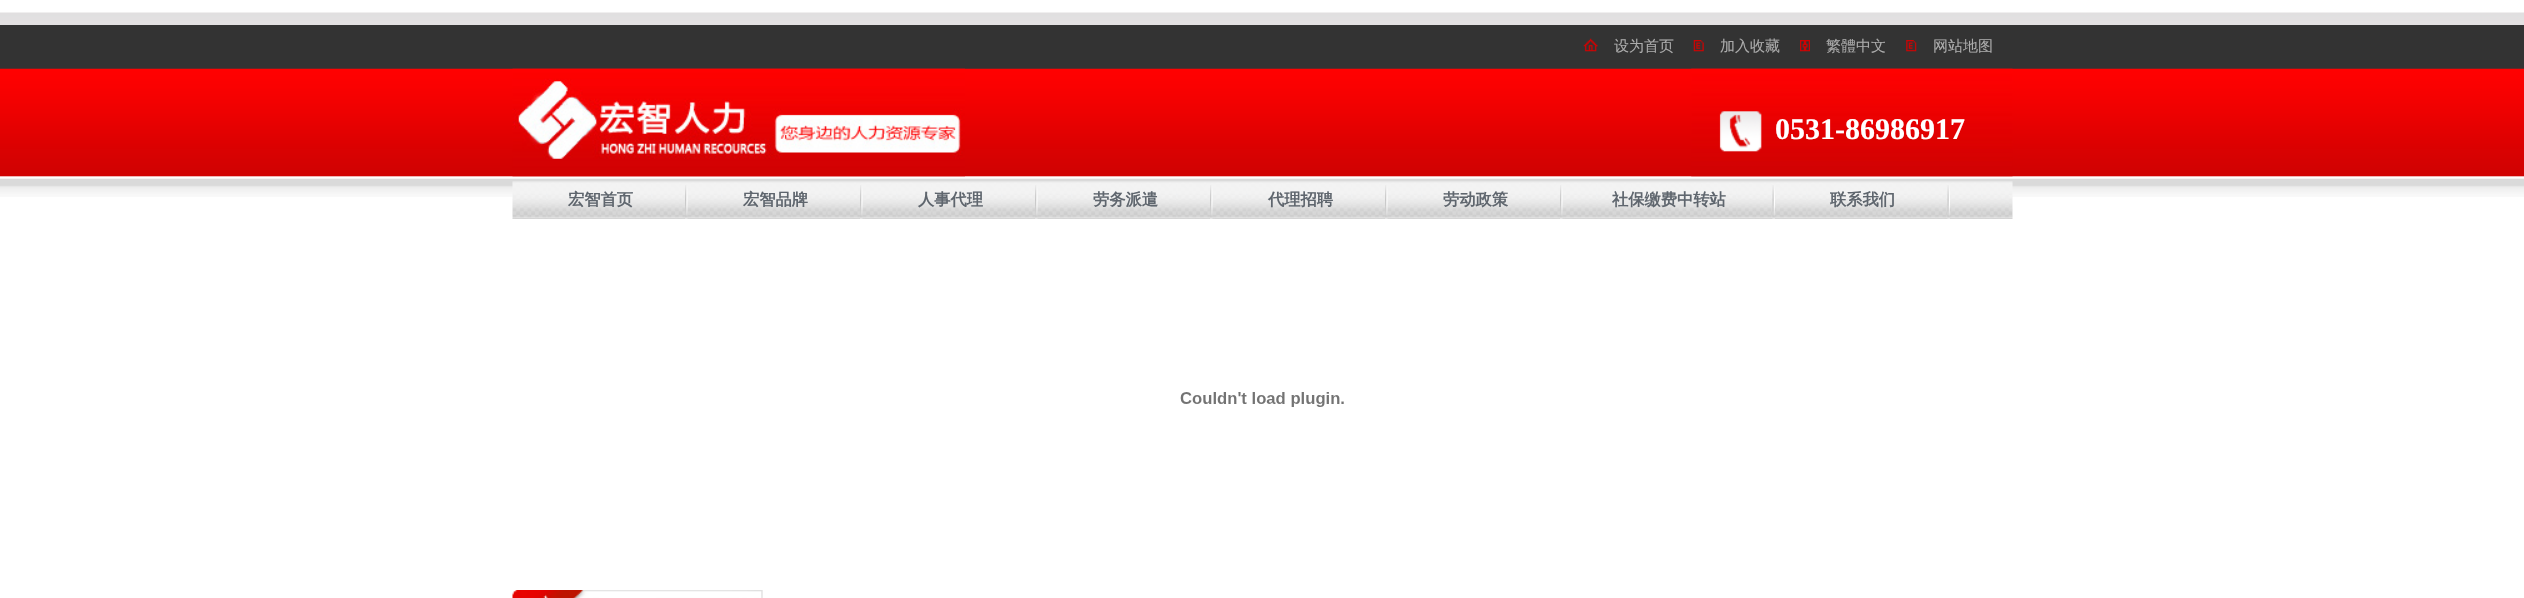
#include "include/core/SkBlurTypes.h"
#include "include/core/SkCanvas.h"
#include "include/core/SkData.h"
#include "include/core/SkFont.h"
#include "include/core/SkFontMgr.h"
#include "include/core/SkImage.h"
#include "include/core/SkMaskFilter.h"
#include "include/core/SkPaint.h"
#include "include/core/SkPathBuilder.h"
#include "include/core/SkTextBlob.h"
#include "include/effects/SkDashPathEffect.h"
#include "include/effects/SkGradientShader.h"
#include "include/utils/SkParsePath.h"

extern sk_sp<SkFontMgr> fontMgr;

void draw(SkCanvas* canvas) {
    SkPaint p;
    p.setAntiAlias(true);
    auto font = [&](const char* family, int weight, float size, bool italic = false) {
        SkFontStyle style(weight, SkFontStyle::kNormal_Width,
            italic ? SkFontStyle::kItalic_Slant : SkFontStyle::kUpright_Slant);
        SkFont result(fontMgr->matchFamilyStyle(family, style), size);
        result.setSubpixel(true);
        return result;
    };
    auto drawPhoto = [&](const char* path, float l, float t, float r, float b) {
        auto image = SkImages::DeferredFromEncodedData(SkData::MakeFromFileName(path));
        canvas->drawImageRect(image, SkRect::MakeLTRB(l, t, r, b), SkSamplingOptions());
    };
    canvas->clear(0xFFFFFFFF);
    drawPhoto("media/1.png", 0, 12, 2524, 187);
    p.setColor(0xFF333333);
    canvas->drawRect(SkRect::MakeLTRB(0, 25, 2524, 69), p);
    drawPhoto("media/2.png", 1583, 38, 1598, 52);
    auto font1 = font("WenQuanYi Zen Hei", 500, 15);
    p.setColor(0xFFABABAB);
    canvas->drawString("设为首页", 1614, 51, font1, p);
    drawPhoto("media/3.png", 1693, 40, 1704, 52);
    canvas->drawString("加入收藏", 1720, 51, font1, p);
    drawPhoto("media/4.png", 1800, 40, 1810, 52);
    canvas->drawString("繁體中文", 1826, 51, font1, p);
    drawPhoto("media/5.png", 1906, 40, 1917, 52);
    canvas->drawString("网站地图", 1933, 51, font1, p);
    drawPhoto("media/6.png", 0, 68, 2524, 197);
    drawPhoto("media/7.png", 512, 68, 965, 177);
    drawPhoto("media/8.png", 1691, 68, 2013, 177);
    auto font2 = font("Liberation Serif", 700, 30);
    p.setColor(0xFFFFFFFF);
    canvas->drawString("0531-86986917", 1775, 139, font2, p);
    drawPhoto("media/9.png", 512, 181, 2013, 219);
    drawPhoto("media/10.png", 685, 185, 688, 219);
    auto font3 = font("WenQuanYi Zen Hei", 700, 16.25f);
    p.setColor(0xFF5F666E);
    canvas->drawString("宏智首页", 568, 205, font3, p);
    drawPhoto("media/10.png", 860, 185, 863, 219);
    canvas->drawString("宏智品牌", 743, 205, font3, p);
    drawPhoto("media/11.png", 1035, 185, 1038, 219);
    canvas->drawString("人事代理", 918, 205, font3, p);
    drawPhoto("media/10.png", 1210, 185, 1213, 219);
    canvas->drawString("劳务派遣", 1093, 205, font3, p);
    drawPhoto("media/10.png", 1385, 185, 1388, 219);
    canvas->drawString("代理招聘", 1268, 205, font3, p);
    drawPhoto("media/10.png", 1560, 185, 1563, 219);
    canvas->drawString("劳动政策", 1443, 205, font3, p);
    drawPhoto("media/12.png", 1772, 185, 1775, 219);
    canvas->drawString("社保缴费中转站", 1612, 205, font3, p);
    drawPhoto("media/12.png", 1947, 185, 1950, 219);
    canvas->drawString("联系我们", 1830, 205, font3, p);
    drawPhoto("media/13.png", 1180, 392, 1344, 407);
    p.setColor(0xFFF5F5F5);
    canvas->drawRect(SkRect::MakeLTRB(762, 590, 763, 598), p);
    drawPhoto("media/14.png", 512, 590, 763, 598);
}
